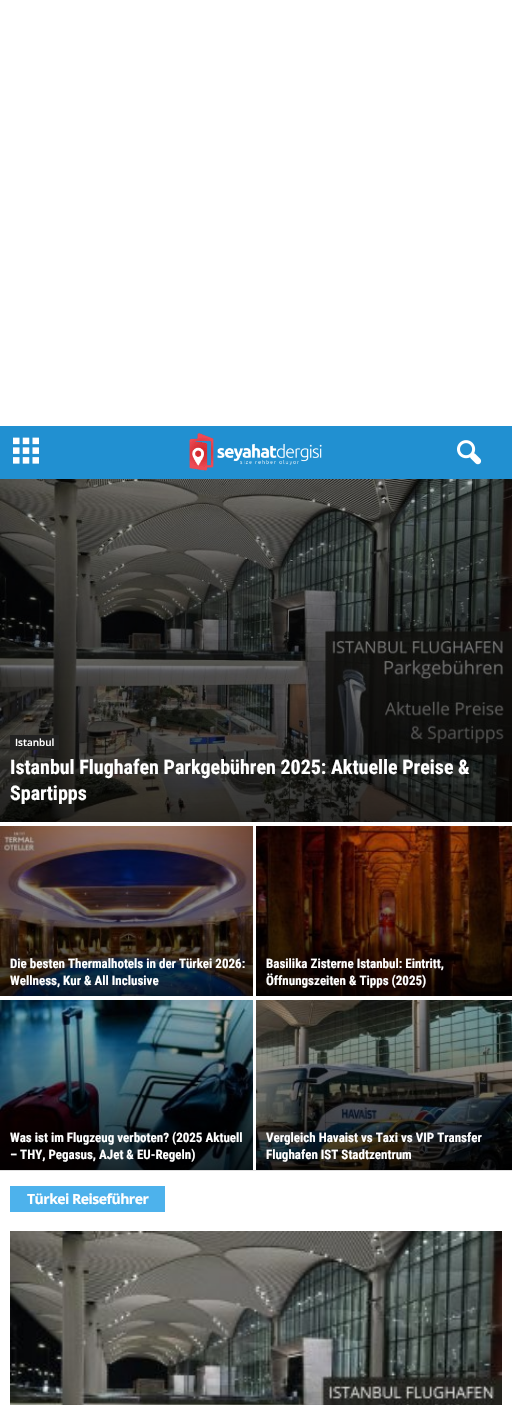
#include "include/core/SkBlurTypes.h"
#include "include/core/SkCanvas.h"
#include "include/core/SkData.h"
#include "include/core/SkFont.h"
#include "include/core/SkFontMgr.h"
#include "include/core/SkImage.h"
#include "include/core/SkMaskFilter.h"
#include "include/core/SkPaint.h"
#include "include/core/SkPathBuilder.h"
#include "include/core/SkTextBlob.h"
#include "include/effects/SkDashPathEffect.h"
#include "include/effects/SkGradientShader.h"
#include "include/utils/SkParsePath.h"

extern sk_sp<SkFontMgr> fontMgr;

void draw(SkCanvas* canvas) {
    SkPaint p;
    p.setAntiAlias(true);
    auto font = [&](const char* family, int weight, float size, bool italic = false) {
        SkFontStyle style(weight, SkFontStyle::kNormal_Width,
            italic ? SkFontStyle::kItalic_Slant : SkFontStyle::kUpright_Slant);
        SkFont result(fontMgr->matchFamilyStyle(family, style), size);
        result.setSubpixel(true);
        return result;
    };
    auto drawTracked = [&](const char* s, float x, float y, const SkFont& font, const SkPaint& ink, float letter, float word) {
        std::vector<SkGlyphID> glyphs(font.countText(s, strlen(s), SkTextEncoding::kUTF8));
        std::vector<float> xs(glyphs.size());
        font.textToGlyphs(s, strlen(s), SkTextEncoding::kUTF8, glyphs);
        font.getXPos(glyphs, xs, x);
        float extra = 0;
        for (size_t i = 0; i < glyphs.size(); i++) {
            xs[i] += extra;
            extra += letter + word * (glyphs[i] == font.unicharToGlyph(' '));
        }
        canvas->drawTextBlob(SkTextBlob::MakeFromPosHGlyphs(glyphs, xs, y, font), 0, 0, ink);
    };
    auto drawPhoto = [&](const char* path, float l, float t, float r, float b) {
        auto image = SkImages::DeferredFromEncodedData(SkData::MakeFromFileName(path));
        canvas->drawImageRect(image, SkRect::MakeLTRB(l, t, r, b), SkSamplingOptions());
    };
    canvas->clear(0xFFFFFFFF);
    p.setColor(0xFF2190D1);
    canvas->drawRect(SkRect::MakeLTRB(0, 426, 512, 479), p);
    drawPhoto("media/1.png", 13, 437, 39, 464);
    drawPhoto("media/2.png", 189, 433, 322, 471);
    drawPhoto("media/3.png", 457, 440, 482, 465);
    drawPhoto("media/4.png", 0, 479, 512, 822);
    p.setColor(0xFF222222);
    canvas->drawRect(SkRect::MakeLTRB(10, 735, 59, 750), p);
    auto font1 = font("Open Sans", 600, 10);
    p.setColor(0xFFFFFFFF);
    canvas->drawString("Istanbul", 15, 746, font1, p);
    auto font2 = font("Roboto Condensed", 700, 20);
    canvas->drawString("Istanbul Flughafen Parkgebühren 2025: Aktuelle Preise &", 10, 774, font2, p);
    canvas->drawString("Spartipps", 10, 800, font2, p);
    drawPhoto("media/5.png", 0, 826, 253, 996);
    auto font3 = font("Roboto Condensed", 700, 13);
    canvas->drawString("Die besten Thermalhotels in der Türkei 2026:", 10, 968, font3, p);
    canvas->drawString("Wellness, Kur & All Inclusive", 10, 985, font3, p);
    drawPhoto("media/6.png", 256, 826, 512, 996);
    canvas->drawString("Basilika Zisterne Istanbul: Eintritt,", 266, 968, font3, p);
    canvas->drawString("Öffnungszeiten & Tipps (2025)", 266, 985, font3, p);
    drawPhoto("media/7.png", 0, 1000, 253, 1170);
    canvas->drawString("Was ist im Flugzeug verboten? (2025 Aktuell", 10, 1142, font3, p);
    canvas->drawString("– THY, Pegasus, AJet & EU-Regeln)", 10, 1159, font3, p);
    drawPhoto("media/8.png", 256, 1000, 512, 1170);
    canvas->drawString("Vergleich Havaist vs Taxi vs VIP Transfer", 266, 1142, font3, p);
    canvas->drawString("Flughafen IST Stadtzentrum", 266, 1159, font3, p);
    p.setColor(0xFFDFDFDF);
    canvas->drawRect(SkRect::MakeLTRB(0, 1170, 512, 1171), p);
    p.setColor(0xFF4DB2EC);
    canvas->drawRect(SkRect::MakeLTRB(10, 1186, 165, 1212), p);
    auto font4 = font("Open Sans", 700, 14);
    p.setColor(0xFFFFFFFF);
    drawTracked("Türkei Reiseführer", 27, 1204, font4, p, -0.5f, 0);
    drawPhoto("media/9.png", 10, 1231, 502, 1405);
}
